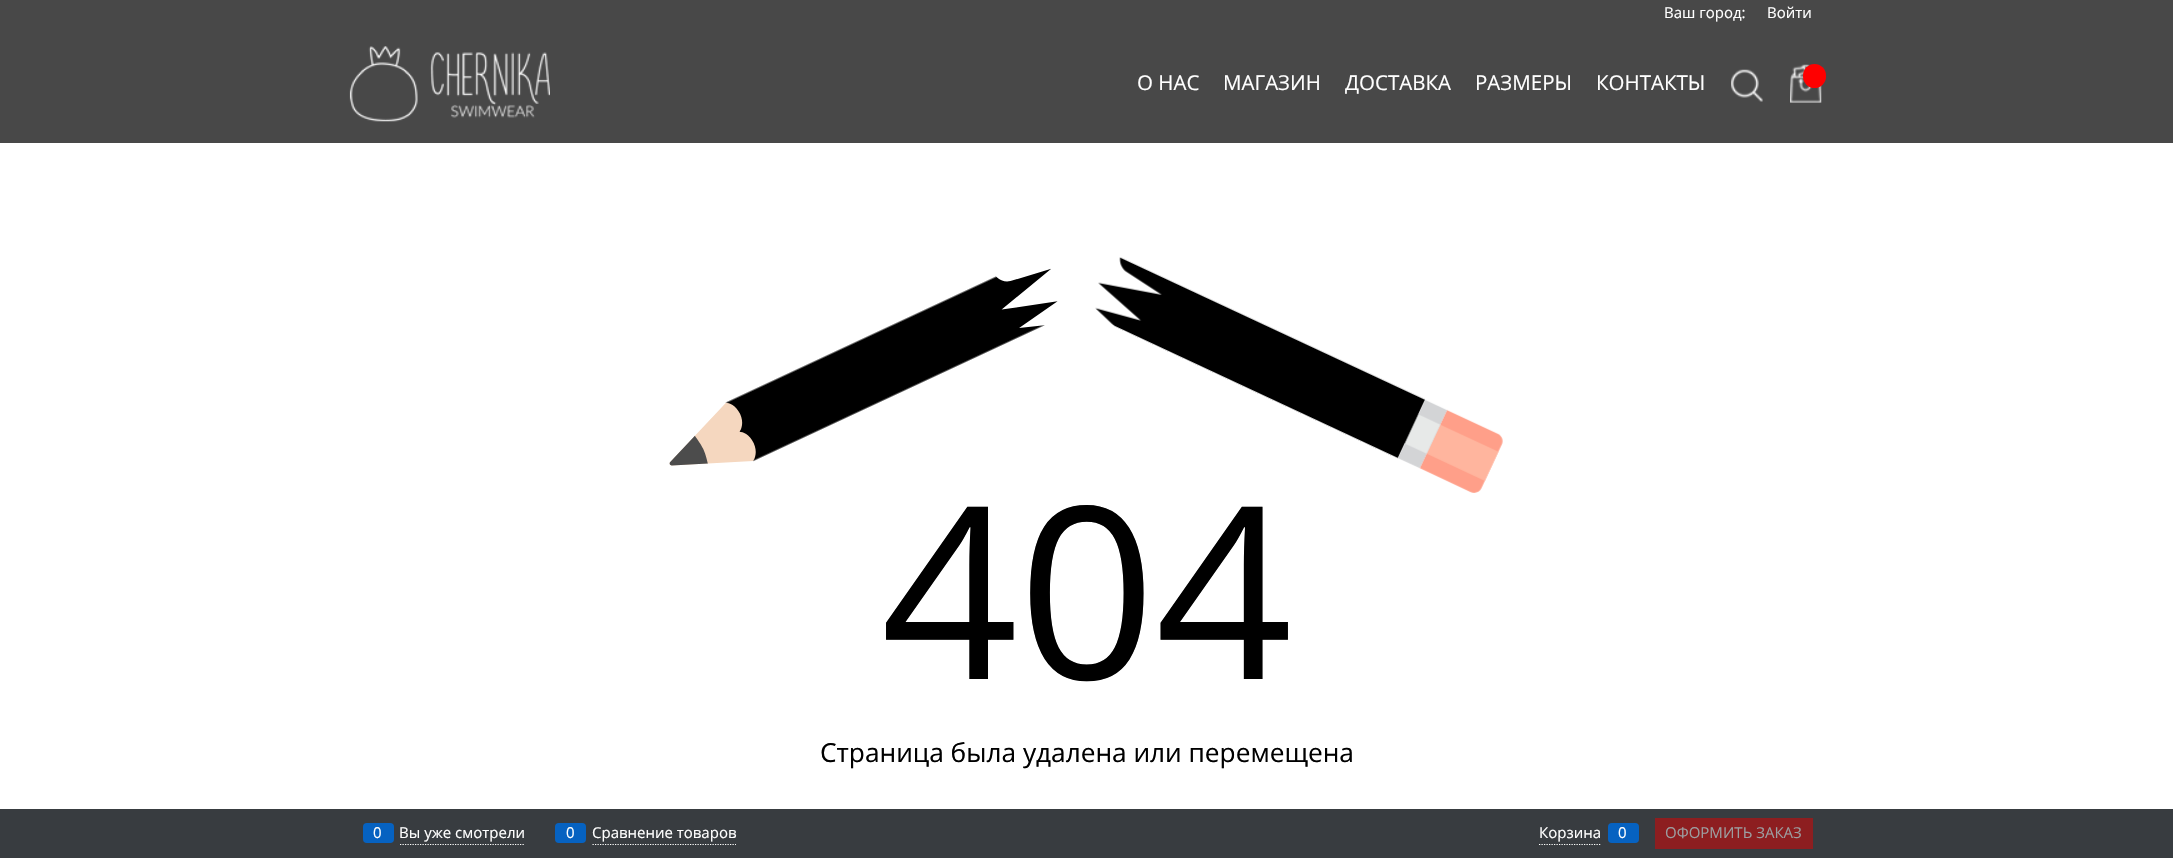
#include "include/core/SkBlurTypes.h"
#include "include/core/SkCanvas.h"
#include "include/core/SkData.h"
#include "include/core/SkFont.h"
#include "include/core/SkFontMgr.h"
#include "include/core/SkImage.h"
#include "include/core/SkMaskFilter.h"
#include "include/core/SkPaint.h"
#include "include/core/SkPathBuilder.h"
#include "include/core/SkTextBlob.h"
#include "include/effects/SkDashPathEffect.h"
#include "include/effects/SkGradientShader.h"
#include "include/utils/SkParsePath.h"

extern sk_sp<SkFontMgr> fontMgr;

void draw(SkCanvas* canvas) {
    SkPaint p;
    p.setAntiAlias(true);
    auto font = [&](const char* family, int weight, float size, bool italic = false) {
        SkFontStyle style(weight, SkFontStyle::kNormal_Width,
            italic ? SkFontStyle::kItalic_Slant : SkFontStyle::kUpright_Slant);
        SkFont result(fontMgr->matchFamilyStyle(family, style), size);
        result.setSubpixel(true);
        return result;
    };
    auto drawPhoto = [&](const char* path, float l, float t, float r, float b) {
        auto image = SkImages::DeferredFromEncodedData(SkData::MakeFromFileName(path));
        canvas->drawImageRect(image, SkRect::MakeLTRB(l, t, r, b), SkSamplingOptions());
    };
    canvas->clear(0xFFFFFFFF);
    p.setColor(0xFF484848);
    canvas->drawRect(SkRect::MakeLTRB(0, 0, 2173, 143), p);
    auto font1 = font("Open Sans", 400, 15);
    p.setColor(0xFFFFFFFF);
    canvas->drawString("Ваш город:", 1664, 18, font1, p);
    canvas->drawString("Войти", 1767, 18, font1, p);
    drawPhoto("media/1.png", 349, 46, 550, 122);
    auto font2 = font("Open Sans", 400, 20.5f);
    {
        const struct { const char* s; float x, y; } items[] = {
            {"О НАС", 1137, 90},
            {"МАГАЗИН", 1223, 90},
            {"ДОСТАВКА", 1345, 90},
            {"РАЗМЕРЫ", 1475, 90},
            {"КОНТАКТЫ", 1596, 90},
        };
        for (auto [s, x, y] : items) {
            canvas->drawString(s, x, y, font2, p);
        }
    }
    drawPhoto("media/2.png", 1731, 69, 1763, 102);
    drawPhoto("media/3.png", 1790, 64, 1822, 103);
    p.setColor(0xFFFF0000);
    canvas->drawRoundRect(SkRect::MakeLTRB(1803, 64, 1826, 88), 11.5f, 11.5f, p);
    drawPhoto("media/4.png", 669, 257, 1503, 493);
    auto font3 = font("Open Sans", 400, 240);
    p.setColor(0xFF000000);
    canvas->drawString("404", 881, 679, font3, p);
    auto font4 = font("Open Sans", 400, 26.25f);
    canvas->drawString("Страница была удалена или перемещена", 820, 762, font4, p);
    p.setColor(0xFF383C40);
    canvas->drawRect(SkRect::MakeLTRB(0, 809, 2173, 858), p);
    p.setStyle(SkPaint::kStroke_Style);
    p.setStrokeWidth(1.2f);
    p.setColor(0xFFFFFFFF);
    p.setPathEffect(SkDashPathEffect::Make({{1.25f, 1.25f}}, 0));
    canvas->drawPath(SkPathBuilder().moveTo(400, 844.5f).lineTo(525, 844.5f).detach(), p);
    p.setPathEffect(nullptr);
    p.setStyle(SkPaint::kFill_Style);
    p.setColor(0xFF0662C1);
    canvas->drawRoundRect(SkRect::MakeLTRB(363, 823, 394, 843), 4, 4, p);
    p.setColor(0xFFFFFFFF);
    canvas->drawString("0", 373, 838, font1, p);
    canvas->drawString("Вы уже смотрели", 399, 838, font1, p);
    p.setStyle(SkPaint::kStroke_Style);
    p.setPathEffect(SkDashPathEffect::Make({{1.25f, 1.25f}}, 0));
    canvas->drawPath(SkPathBuilder().moveTo(592.5f, 844.5f).lineTo(736, 844.5f).detach(), p);
    p.setPathEffect(nullptr);
    p.setStyle(SkPaint::kFill_Style);
    p.setColor(0xFF0662C1);
    canvas->drawRoundRect(SkRect::MakeLTRB(555, 823, 586, 843), 4, 4, p);
    p.setColor(0xFFFFFFFF);
    canvas->drawString("0", 566, 838, font1, p);
    canvas->drawString("Сравнение товаров", 592, 838, font1, p);
    p.setStyle(SkPaint::kStroke_Style);
    p.setPathEffect(SkDashPathEffect::Make({{1.25f, 1.25f}}, 0));
    canvas->drawPath(SkPathBuilder().moveTo(1539, 844.5f).lineTo(1601, 844.5f).detach(), p);
    p.setPathEffect(nullptr);
    p.setStyle(SkPaint::kFill_Style);
    canvas->drawString("Корзина", 1539, 838, font1, p);
    p.setColor(0xFF0662C1);
    canvas->drawRoundRect(SkRect::MakeLTRB(1608, 823, 1639, 843), 4, 4, p);
    p.setColor(0xFFFFFFFF);
    canvas->drawString("0", 1618, 838, font1, p);
    p.setColor(0xFF8D1E20);
    canvas->drawRect(SkRect::MakeLTRB(1655, 818, 1813, 849), p);
    p.setColor(0xFF9C9EA0);
    canvas->drawString("ОФОРМИТЬ ЗАКАЗ", 1665, 838, font1, p);
}
